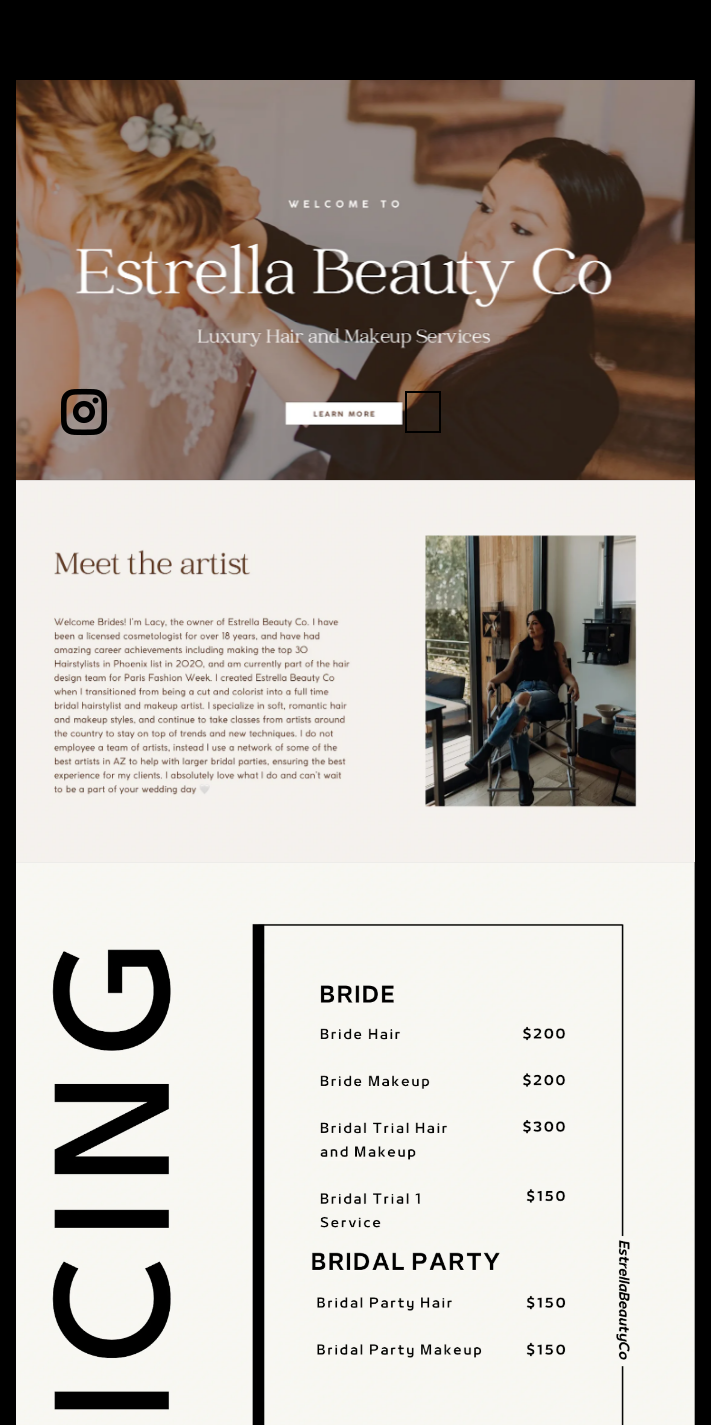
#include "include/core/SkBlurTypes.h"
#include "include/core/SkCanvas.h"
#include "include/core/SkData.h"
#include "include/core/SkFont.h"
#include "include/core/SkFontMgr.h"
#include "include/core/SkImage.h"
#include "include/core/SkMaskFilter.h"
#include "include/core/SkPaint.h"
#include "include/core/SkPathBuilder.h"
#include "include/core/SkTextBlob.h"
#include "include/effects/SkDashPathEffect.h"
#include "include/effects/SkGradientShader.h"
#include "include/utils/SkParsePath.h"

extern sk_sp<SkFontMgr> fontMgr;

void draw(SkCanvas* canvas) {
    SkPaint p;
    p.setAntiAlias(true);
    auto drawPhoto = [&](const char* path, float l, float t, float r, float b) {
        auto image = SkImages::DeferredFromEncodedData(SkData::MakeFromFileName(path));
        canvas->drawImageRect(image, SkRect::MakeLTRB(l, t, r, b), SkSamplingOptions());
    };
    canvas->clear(0xFF000000);
    drawPhoto("media/1.png", 16, 80, 695, 480);
    drawPhoto("media/2.png", 60, 388, 108, 436);
    p.setStyle(SkPaint::kStroke_Style);
    p.setStrokeWidth(2);
    p.setColor(0xFF000000);
    canvas->drawRect(SkRect::MakeLTRB(406, 392, 440, 432), p);
    drawPhoto("media/3.png", 16, 480, 695, 862);
    drawPhoto("media/4.png", 16, 862, 695, 1425);
}
